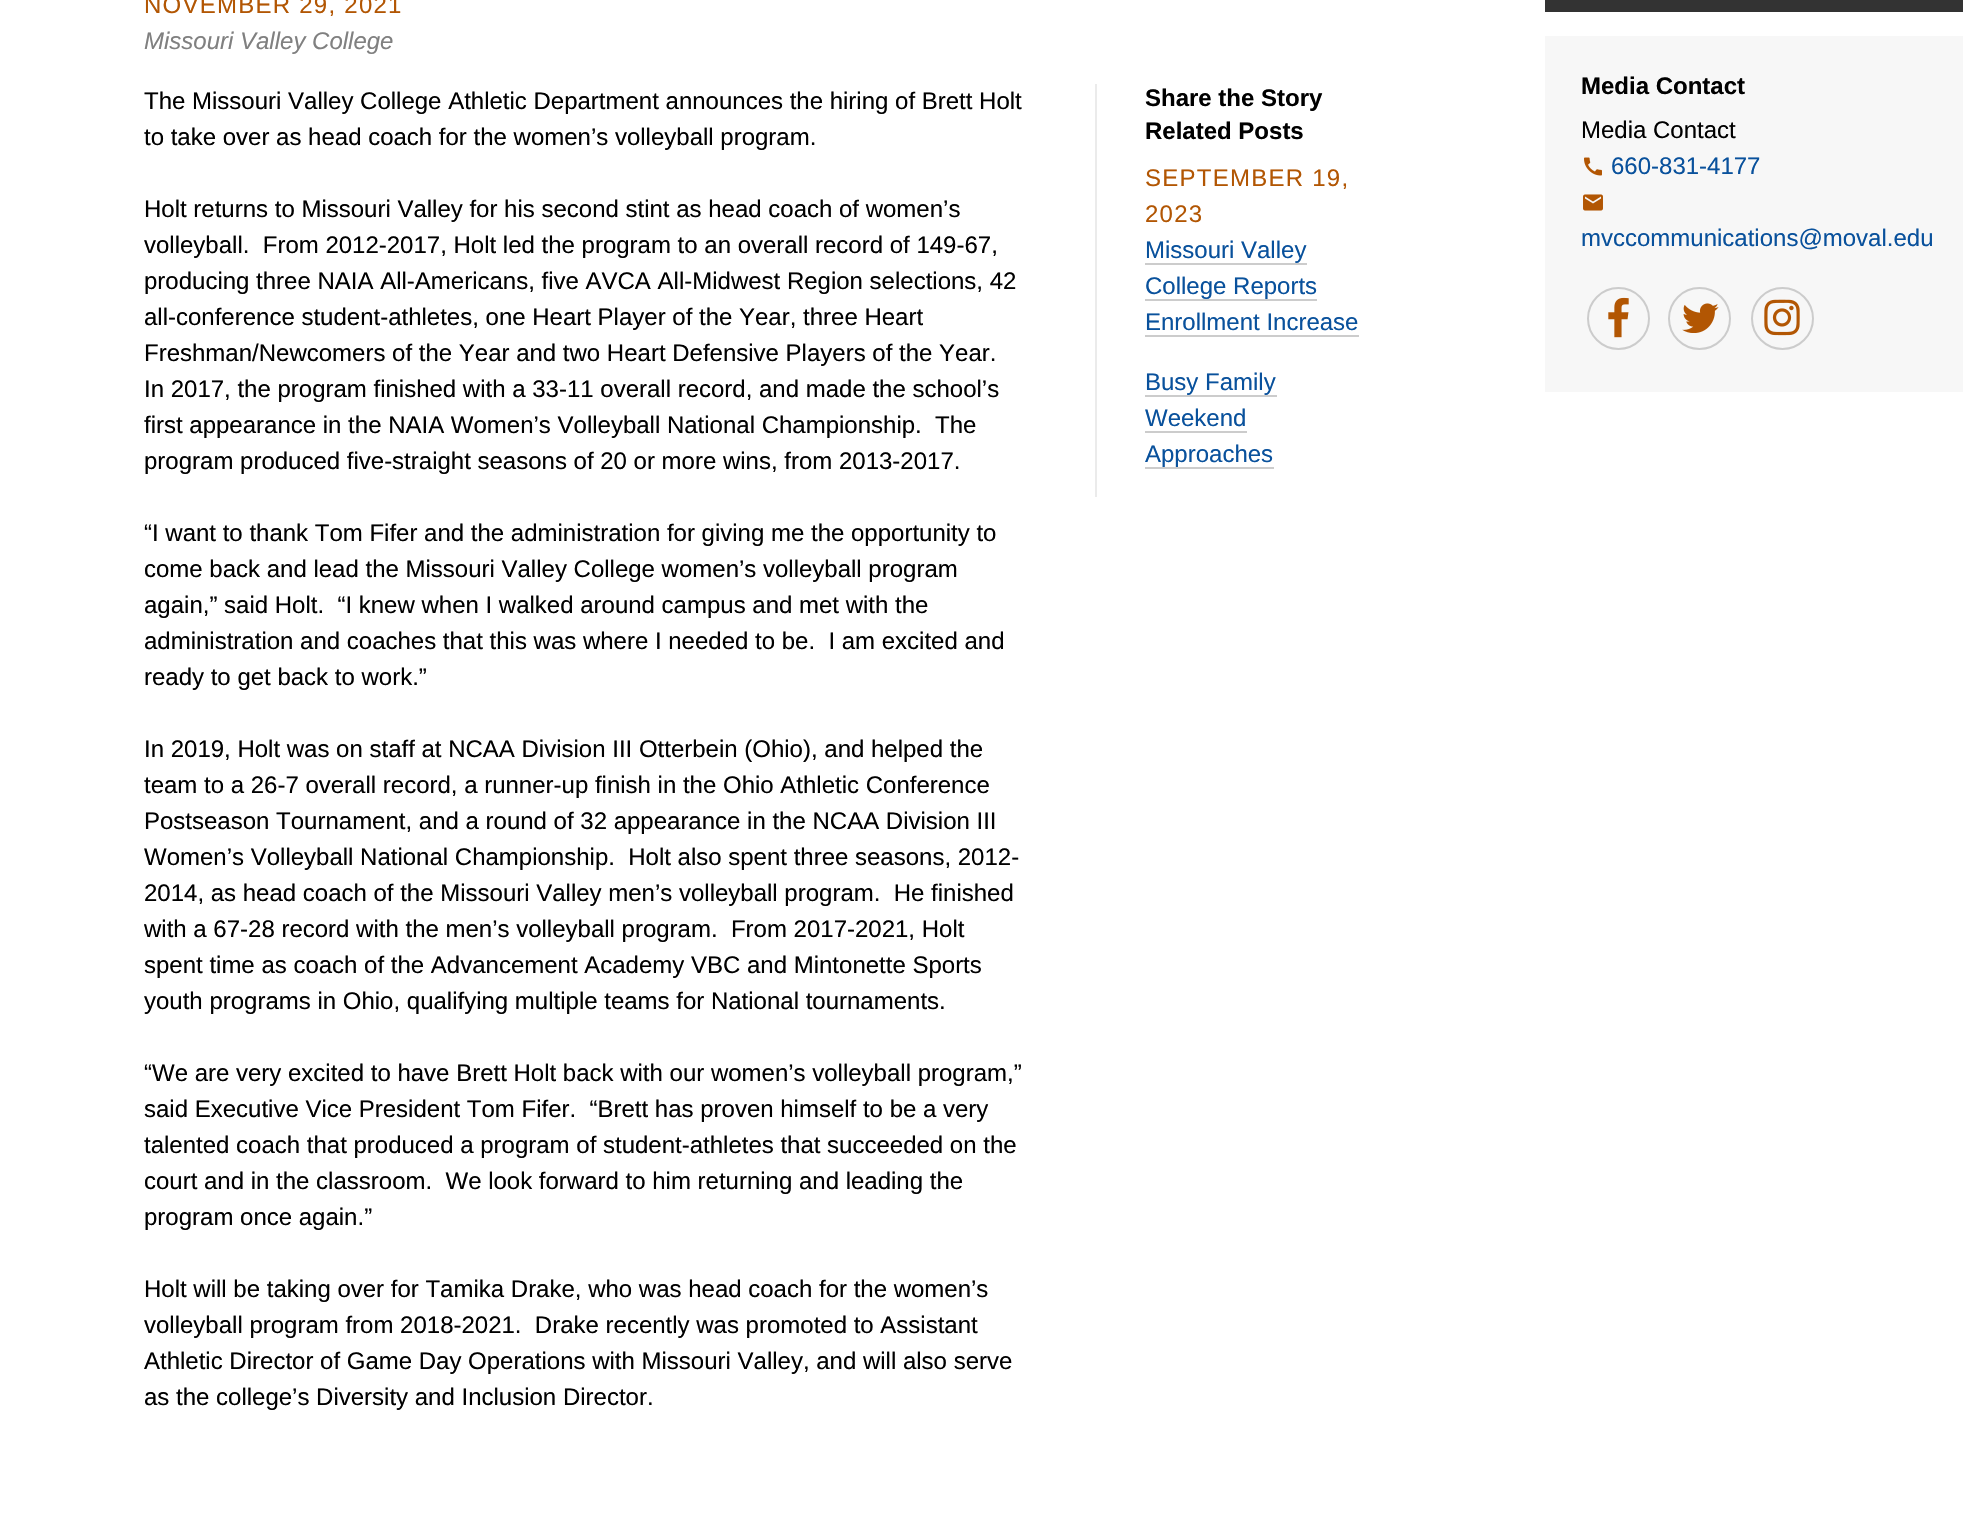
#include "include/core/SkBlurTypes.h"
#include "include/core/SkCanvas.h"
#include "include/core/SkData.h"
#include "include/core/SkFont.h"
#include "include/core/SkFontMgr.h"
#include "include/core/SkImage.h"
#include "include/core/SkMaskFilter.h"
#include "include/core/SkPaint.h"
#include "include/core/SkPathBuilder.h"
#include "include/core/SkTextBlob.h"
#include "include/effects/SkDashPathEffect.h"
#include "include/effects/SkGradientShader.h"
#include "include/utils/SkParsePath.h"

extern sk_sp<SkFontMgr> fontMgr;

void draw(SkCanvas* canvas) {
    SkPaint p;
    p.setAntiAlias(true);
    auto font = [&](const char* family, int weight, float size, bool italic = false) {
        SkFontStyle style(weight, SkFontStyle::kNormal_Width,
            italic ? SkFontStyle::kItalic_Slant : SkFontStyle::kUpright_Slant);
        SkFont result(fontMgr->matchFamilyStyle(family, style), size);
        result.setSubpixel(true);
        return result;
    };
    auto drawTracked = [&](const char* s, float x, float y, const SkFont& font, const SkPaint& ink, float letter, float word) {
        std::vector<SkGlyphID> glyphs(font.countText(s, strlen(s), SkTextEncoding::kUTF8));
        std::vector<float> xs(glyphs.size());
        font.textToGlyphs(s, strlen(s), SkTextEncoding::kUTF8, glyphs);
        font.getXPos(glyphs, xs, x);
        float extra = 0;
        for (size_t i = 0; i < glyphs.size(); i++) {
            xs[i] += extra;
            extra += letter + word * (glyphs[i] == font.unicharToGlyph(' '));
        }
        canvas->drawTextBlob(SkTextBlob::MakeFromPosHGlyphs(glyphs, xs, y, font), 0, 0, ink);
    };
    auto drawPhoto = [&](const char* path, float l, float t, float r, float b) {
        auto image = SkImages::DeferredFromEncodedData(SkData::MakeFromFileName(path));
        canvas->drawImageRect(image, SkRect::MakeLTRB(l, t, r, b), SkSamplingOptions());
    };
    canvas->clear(0xFFFFFFFF);
    auto font1 = font("Liberation Sans", 400, 24);
    p.setColor(0xFFB25603);
    drawTracked("NOVEMBER 29, 2021", 144, 13, font1, p, 1.25f, 0);
    auto font2 = font("Liberation Sans", 400, 24, true);
    p.setColor(0xFF808080);
    canvas->drawString("Missouri Valley College", 144, 49, font2, p);
    p.setColor(0xFF000000);
    {
        const struct { const char* s; float x, y; } items[] = {
            {"The Missouri Valley College Athletic Department announces the hiring of Brett Holt", 144, 109},
            {"to take over as head coach for the women’s volleyball program.", 144, 145},
            {"Holt returns to Missouri Valley for his second stint as head coach of women’s", 144, 217},
            {"volleyball.  From 2012-2017, Holt led the program to an overall record of 149-67,", 144, 253},
            {"producing three NAIA All-Americans, five AVCA All-Midwest Region selections, 42", 144, 289},
            {"all-conference student-athletes, one Heart Player of the Year, three Heart", 144, 325},
            {"Freshman/Newcomers of the Year and two Heart Defensive Players of the Year.", 144, 361},
            {"In 2017, the program finished with a 33-11 overall record, and made the school’s", 144, 397},
            {"first appearance in the NAIA Women’s Volleyball National Championship.  The", 144, 433},
            {"program produced five-straight seasons of 20 or more wins, from 2013-2017.", 144, 469},
            {"“I want to thank Tom Fifer and the administration for giving me the opportunity to", 144, 541},
            {"come back and lead the Missouri Valley College women’s volleyball program", 144, 577},
            {"again,” said Holt.  “I knew when I walked around campus and met with the", 144, 613},
            {"administration and coaches that this was where I needed to be.  I am excited and", 144, 649},
            {"ready to get back to work.”", 144, 685},
            {"In 2019, Holt was on staff at NCAA Division III Otterbein (Ohio), and helped the", 144, 757},
            {"team to a 26-7 overall record, a runner-up finish in the Ohio Athletic Conference", 144, 793},
            {"Postseason Tournament, and a round of 32 appearance in the NCAA Division III", 144, 829},
            {"Women’s Volleyball National Championship.  Holt also spent three seasons, 2012-", 144, 865},
            {"2014, as head coach of the Missouri Valley men’s volleyball program.  He finished", 144, 901},
            {"with a 67-28 record with the men’s volleyball program.  From 2017-2021, Holt", 144, 937},
            {"spent time as coach of the Advancement Academy VBC and Mintonette Sports", 144, 973},
            {"youth programs in Ohio, qualifying multiple teams for National tournaments.", 144, 1009},
            {"“We are very excited to have Brett Holt back with our women’s volleyball program,”", 144, 1081},
            {"said Executive Vice President Tom Fifer.  “Brett has proven himself to be a very", 144, 1117},
            {"talented coach that produced a program of student-athletes that succeeded on the", 144, 1153},
            {"court and in the classroom.  We look forward to him returning and leading the", 144, 1189},
            {"program once again.”", 144, 1225},
            {"Holt will be taking over for Tamika Drake, who was head coach for the women’s", 144, 1297},
            {"volleyball program from 2018-2021.  Drake recently was promoted to Assistant", 144, 1333},
            {"Athletic Director of Game Day Operations with Missouri Valley, and will also serve", 144, 1369},
            {"as the college’s Diversity and Inclusion Director.", 144, 1405},
        };
        for (auto [s, x, y] : items) {
            canvas->drawString(s, x, y, font1, p);
        }
    }
    p.setColor(0xFFEBEBEB);
    canvas->drawRect(SkRect::MakeLTRB(1095, 84, 1097, 497), p);
    auto font3 = font("Liberation Sans", 700, 24);
    p.setColor(0xFF000000);
    canvas->drawString("Share the Story", 1145, 106, font3, p);
    canvas->drawString("Related Posts", 1145, 139, font3, p);
    p.setColor(0xFFB25603);
    drawTracked("SEPTEMBER 19,", 1145, 186, font1, p, 1.25f, 0);
    drawTracked("2023", 1145, 222, font1, p, 1.25f, 0);
    p.setColor(0xFF09519C);
    canvas->drawString("Missouri Valley", 1145, 258, font1, p);
    p.setColor(0xFFCCCCCC);
    canvas->drawRect(SkRect::MakeLTRB(1145, 263, 1307, 265), p);
    p.setColor(0xFF09519C);
    canvas->drawString("College Reports", 1145, 294, font1, p);
    p.setColor(0xFFCCCCCC);
    canvas->drawRect(SkRect::MakeLTRB(1145, 299, 1317, 301), p);
    p.setColor(0xFF09519C);
    canvas->drawString("Enrollment Increase", 1145, 330, font1, p);
    p.setColor(0xFFCCCCCC);
    canvas->drawRect(SkRect::MakeLTRB(1145, 335, 1359, 337), p);
    p.setColor(0xFF09519C);
    canvas->drawString("Busy Family", 1145, 390, font1, p);
    p.setColor(0xFFCCCCCC);
    canvas->drawRect(SkRect::MakeLTRB(1145, 395, 1277, 397), p);
    p.setColor(0xFF09519C);
    canvas->drawString("Weekend", 1145, 426, font1, p);
    p.setColor(0xFFCCCCCC);
    canvas->drawRect(SkRect::MakeLTRB(1145, 431, 1247, 433), p);
    p.setColor(0xFF09519C);
    canvas->drawString("Approaches", 1145, 462, font1, p);
    {
        const struct { float l, t, r, b; SkColor color; } items[] = {
            {1145, 467, 1274, 469, 0xFFCCCCCC},
            {1545, 0, 1963, 12, 0xFF333333},
            {1545, 36, 1963, 392, 0xFFF7F7F7},
        };
        for (auto [l, t, r, b, color] : items) {
            p.setColor(color);
            canvas->drawRect(SkRect::MakeLTRB(l, t, r, b), p);
        }
    }
    p.setColor(0xFF000000);
    canvas->drawString("Media Contact", 1581, 94, font3, p);
    canvas->drawString("Media Contact", 1581, 138, font1, p);
    drawPhoto("media/1.png", 1584, 157, 1602, 176);
    p.setColor(0xFF09519C);
    canvas->drawString("660-831-4177", 1611, 174, font1, p);
    drawPhoto("media/2.png", 1583, 194, 1603, 211);
    canvas->drawString("mvccommunications@moval.edu", 1581, 246, font1, p);
    drawPhoto("media/3.png", 1608, 297, 1629, 338);
    p.setStyle(SkPaint::kStroke_Style);
    p.setStrokeWidth(2);
    p.setColor(0xFFCCCCCC);
    canvas->drawCircle(1618.5f, 318.5f, 30.5f, p);
    drawPhoto("media/4.png", 1682, 303, 1719, 333);
    canvas->drawCircle(1699.5f, 318.5f, 30.5f, p);
    drawPhoto("media/5.png", 1764, 299, 1800, 336);
    canvas->drawCircle(1782.5f, 318.5f, 30.5f, p);
}
